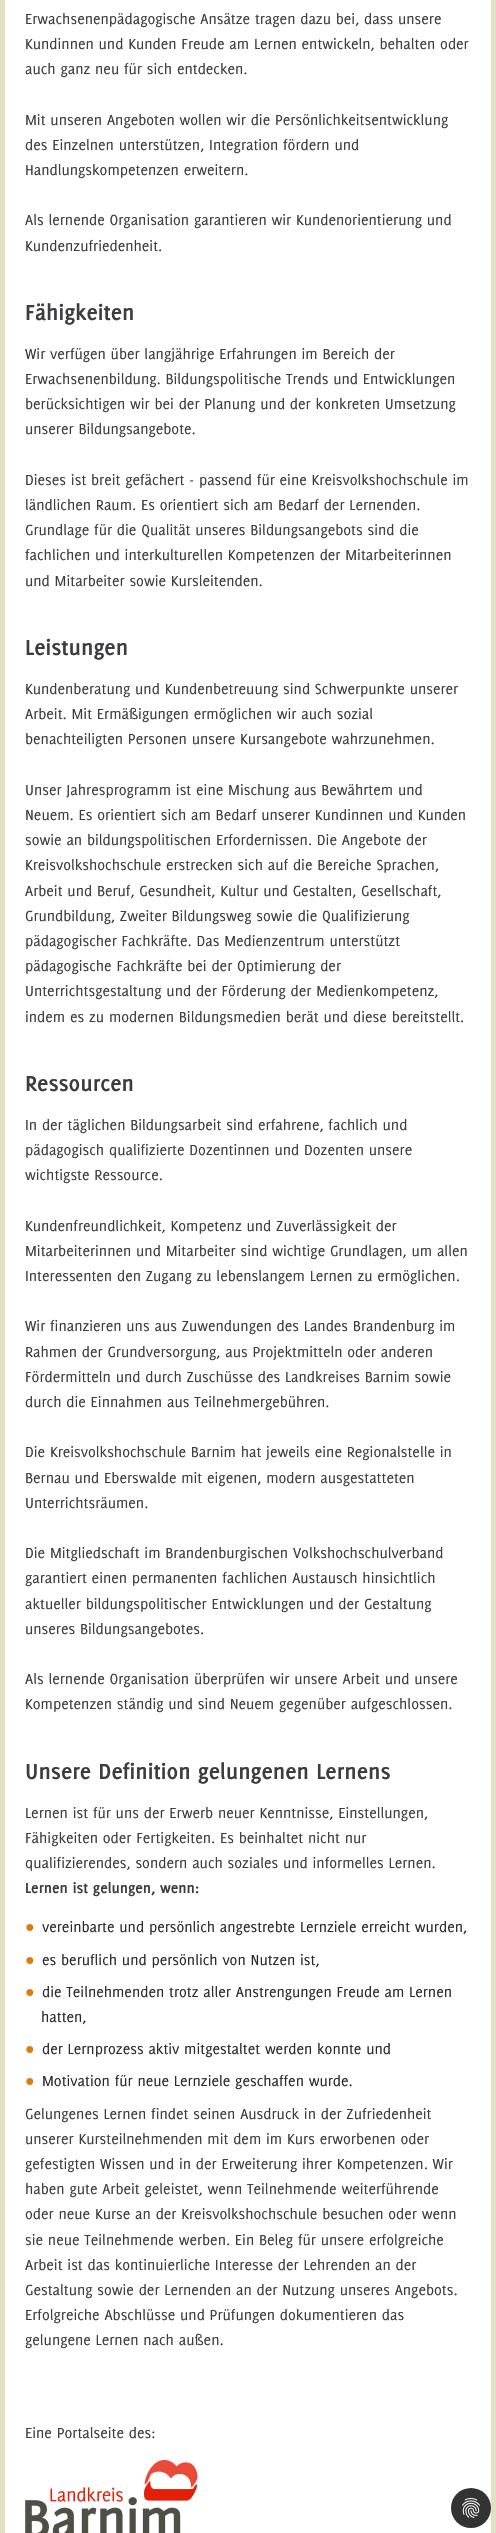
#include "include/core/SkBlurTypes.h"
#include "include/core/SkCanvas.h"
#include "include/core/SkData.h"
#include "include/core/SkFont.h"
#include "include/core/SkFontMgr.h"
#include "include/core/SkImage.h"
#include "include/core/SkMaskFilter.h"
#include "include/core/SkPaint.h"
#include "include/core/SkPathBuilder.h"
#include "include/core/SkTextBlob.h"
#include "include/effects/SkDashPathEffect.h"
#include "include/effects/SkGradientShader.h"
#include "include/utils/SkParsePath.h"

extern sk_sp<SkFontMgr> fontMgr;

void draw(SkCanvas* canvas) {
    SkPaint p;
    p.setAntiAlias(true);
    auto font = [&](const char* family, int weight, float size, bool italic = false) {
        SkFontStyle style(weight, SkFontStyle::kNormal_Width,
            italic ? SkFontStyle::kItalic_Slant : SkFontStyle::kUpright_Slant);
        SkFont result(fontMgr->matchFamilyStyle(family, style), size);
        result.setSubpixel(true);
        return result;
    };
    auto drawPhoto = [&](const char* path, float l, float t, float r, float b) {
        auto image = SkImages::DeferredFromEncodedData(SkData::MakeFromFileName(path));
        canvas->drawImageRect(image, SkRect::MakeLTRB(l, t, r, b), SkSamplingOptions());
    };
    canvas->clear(0xFFE1E0C3);
    p.setColor(0xFFFFFFFF);
    canvas->drawRect(SkRect::MakeLTRB(5, 0, 491, 2533), p);
    auto font1 = font("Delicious", 400, 16);
    p.setColor(0xFF3D3C3F);
    {
        const struct { const char* s; float x, y; } items[] = {
            {"Erwachsenenpädagogische Ansätze tragen dazu bei, dass unsere", 25, 24},
            {"Kundinnen und Kunden Freude am Lernen entwickeln, behalten oder", 25, 49},
            {"auch ganz neu für sich entdecken.", 25, 74},
            {"Mit unseren Angeboten wollen wir die Persönlichkeitsentwicklung", 25, 125},
            {"des Einzelnen unterstützen, Integration fördern und", 25, 150},
            {"Handlungskompetenzen erweitern.", 25, 175},
            {"Als lernende Organisation garantieren wir Kundenorientierung und", 25, 225},
            {"Kundenzufriedenheit.", 25, 251},
        };
        for (auto [s, x, y] : items) {
            canvas->drawString(s, x, y, font1, p);
        }
    }
    auto font2 = font("Delicious", 700, 24);
    canvas->drawString("Fähigkeiten", 25, 320, font2, p);
    {
        const struct { const char* s; float x, y; } items[] = {
            {"Wir verfügen über langjährige Erfahrungen im Bereich der", 25, 359},
            {"Erwachsenenbildung. Bildungspolitische Trends und Entwicklungen", 25, 384},
            {"berücksichtigen wir bei der Planung und der konkreten Umsetzung", 25, 409},
            {"unserer Bildungsangebote.", 25, 434},
            {"Dieses ist breit gefächert - passend für eine Kreisvolkshochschule im", 25, 485},
            {"ländlichen Raum. Es orientiert sich am Bedarf der Lernenden.", 25, 510},
            {"Grundlage für die Qualität unseres Bildungsangebots sind die", 25, 535},
            {"fachlichen und interkulturellen Kompetenzen der Mitarbeiterinnen", 25, 560},
            {"und Mitarbeiter sowie Kursleitenden.", 25, 586},
        };
        for (auto [s, x, y] : items) {
            canvas->drawString(s, x, y, font1, p);
        }
    }
    canvas->drawString("Leistungen", 25, 655, font2, p);
    {
        const struct { const char* s; float x, y; } items[] = {
            {"Kundenberatung und Kundenbetreuung sind Schwerpunkte unserer", 25, 694},
            {"Arbeit. Mit Ermäßigungen ermöglichen wir auch sozial", 25, 719},
            {"benachteiligten Personen unsere Kursangebote wahrzunehmen.", 25, 744},
            {"Unser Jahresprogramm ist eine Mischung aus Bewährtem und", 25, 795},
            {"Neuem. Es orientiert sich am Bedarf unserer Kundinnen und Kunden", 25, 820},
            {"sowie an bildungspolitischen Erfordernissen. Die Angebote der", 25, 845},
            {"Kreisvolkshochschule erstrecken sich auf die Bereiche Sprachen,", 25, 870},
            {"Arbeit und Beruf, Gesundheit, Kultur und Gestalten, Gesellschaft,", 25, 896},
            {"Grundbildung, Zweiter Bildungsweg sowie die Qualifizierung", 25, 921},
            {"pädagogischer Fachkräfte. Das Medienzentrum unterstützt", 25, 946},
            {"pädagogische Fachkräfte bei der Optimierung der", 25, 971},
            {"Unterrichtsgestaltung und der Förderung der Medienkompetenz,", 25, 996},
            {"indem es zu modernen Bildungsmedien berät und diese bereitstellt.", 25, 1022},
        };
        for (auto [s, x, y] : items) {
            canvas->drawString(s, x, y, font1, p);
        }
    }
    canvas->drawString("Ressourcen", 25, 1091, font2, p);
    {
        const struct { const char* s; float x, y; } items[] = {
            {"In der täglichen Bildungsarbeit sind erfahrene, fachlich und", 25, 1130},
            {"pädagogisch qualifizierte Dozentinnen und Dozenten unsere", 25, 1155},
            {"wichtigste Ressource.", 25, 1180},
            {"Kundenfreundlichkeit, Kompetenz und Zuverlässigkeit der", 25, 1231},
            {"Mitarbeiterinnen und Mitarbeiter sind wichtige Grundlagen, um allen", 25, 1256},
            {"Interessenten den Zugang zu lebenslangem Lernen zu ermöglichen.", 25, 1281},
            {"Wir finanzieren uns aus Zuwendungen des Landes Brandenburg im", 25, 1331},
            {"Rahmen der Grundversorgung, aus Projektmitteln oder anderen", 25, 1357},
            {"Fördermitteln und durch Zuschüsse des Landkreises Barnim sowie", 25, 1382},
            {"durch die Einnahmen aus Teilnehmergebühren.", 25, 1407},
            {"Die Kreisvolkshochschule Barnim hat jeweils eine Regionalstelle in", 25, 1457},
            {"Bernau und Eberswalde mit eigenen, modern ausgestatteten", 25, 1483},
            {"Unterrichtsräumen.", 25, 1508},
            {"Die Mitgliedschaft im Brandenburgischen Volkshochschulverband", 25, 1558},
            {"garantiert einen permanenten fachlichen Austausch hinsichtlich", 25, 1583},
            {"aktueller bildungspolitischer Entwicklungen und der Gestaltung", 25, 1609},
            {"unseres Bildungsangebotes.", 25, 1634},
            {"Als lernende Organisation überprüfen wir unsere Arbeit und unsere", 25, 1684},
            {"Kompetenzen ständig und sind Neuem gegenüber aufgeschlossen.", 25, 1709},
        };
        for (auto [s, x, y] : items) {
            canvas->drawString(s, x, y, font1, p);
        }
    }
    canvas->drawString("Unsere Definition gelungenen Lernens", 25, 1779, font2, p);
    {
        const struct { const char* s; float x, y; } items[] = {
            {"Lernen ist für uns der Erwerb neuer Kenntnisse, Einstellungen,", 25, 1818},
            {"Fähigkeiten oder Fertigkeiten. Es beinhaltet nicht nur", 25, 1843},
            {"qualifizierendes, sondern auch soziales und informelles Lernen.", 25, 1868},
        };
        for (auto [s, x, y] : items) {
            canvas->drawString(s, x, y, font1, p);
        }
    }
    auto font3 = font("Delicious", 700, 16);
    canvas->drawString("Lernen ist gelungen, wenn:", 25, 1893, font3, p);
    auto font4 = font("Liberation Sans", 400, 16);
    p.setColor(0xFFDD7C0C);
    canvas->drawString("●", 25, 1932, font4, p);
    p.setColor(0xFF2C292D);
    canvas->drawString("vereinbarte und persönlich angestrebte Lernziele erreicht wurden,", 42, 1932, font1, p);
    p.setColor(0xFFDD7C0C);
    canvas->drawString("●", 25, 1965, font4, p);
    p.setColor(0xFF2C292D);
    canvas->drawString("es beruflich und persönlich von Nutzen ist,", 42, 1965, font1, p);
    p.setColor(0xFFDD7C0C);
    canvas->drawString("●", 25, 1997, font4, p);
    p.setColor(0xFF2C292D);
    canvas->drawString("die Teilnehmenden trotz aller Anstrengungen Freude am Lernen", 42, 1997, font1, p);
    canvas->drawString("hatten,", 41, 2022, font1, p);
    p.setColor(0xFFDD7C0C);
    canvas->drawString("●", 25, 2054, font4, p);
    p.setColor(0xFF2C292D);
    canvas->drawString("der Lernprozess aktiv mitgestaltet werden konnte und", 42, 2054, font1, p);
    p.setColor(0xFFDD7C0C);
    canvas->drawString("●", 25, 2086, font4, p);
    p.setColor(0xFF2C292D);
    canvas->drawString("Motivation für neue Lernziele geschaffen wurde.", 42, 2086, font1, p);
    p.setColor(0xFF3D3C3F);
    {
        const struct { const char* s; float x, y; } items[] = {
            {"Gelungenes Lernen findet seinen Ausdruck in der Zufriedenheit", 25, 2119},
            {"unserer Kursteilnehmenden mit dem im Kurs erworbenen oder", 25, 2144},
            {"gefestigten Wissen und in der Erweiterung ihrer Kompetenzen. Wir", 25, 2169},
            {"haben gute Arbeit geleistet, wenn Teilnehmende weiterführende", 25, 2194},
            {"oder neue Kurse an der Kreisvolkshochschule besuchen oder wenn", 25, 2219},
            {"sie neue Teilnehmende werben. Ein Beleg für unsere erfolgreiche", 25, 2245},
            {"Arbeit ist das kontinuierliche Interesse der Lehrenden an der", 25, 2270},
            {"Gestaltung sowie der Lernenden an der Nutzung unseres Angebots.", 25, 2295},
            {"Erfolgreiche Abschlüsse und Prüfungen dokumentieren das", 25, 2320},
            {"gelungene Lernen nach außen.", 25, 2345},
            {"Eine Portalseite des:", 25, 2438},
        };
        for (auto [s, x, y] : items) {
            canvas->drawString(s, x, y, font1, p);
        }
    }
    drawPhoto("media/1.png", 25, 2460, 198, 2533);
    p.setColor(0xFF333333);
    canvas->drawCircle(471, 2508, 20, p);
    drawPhoto("media/2.png", 462, 2498, 480, 2518);
}
